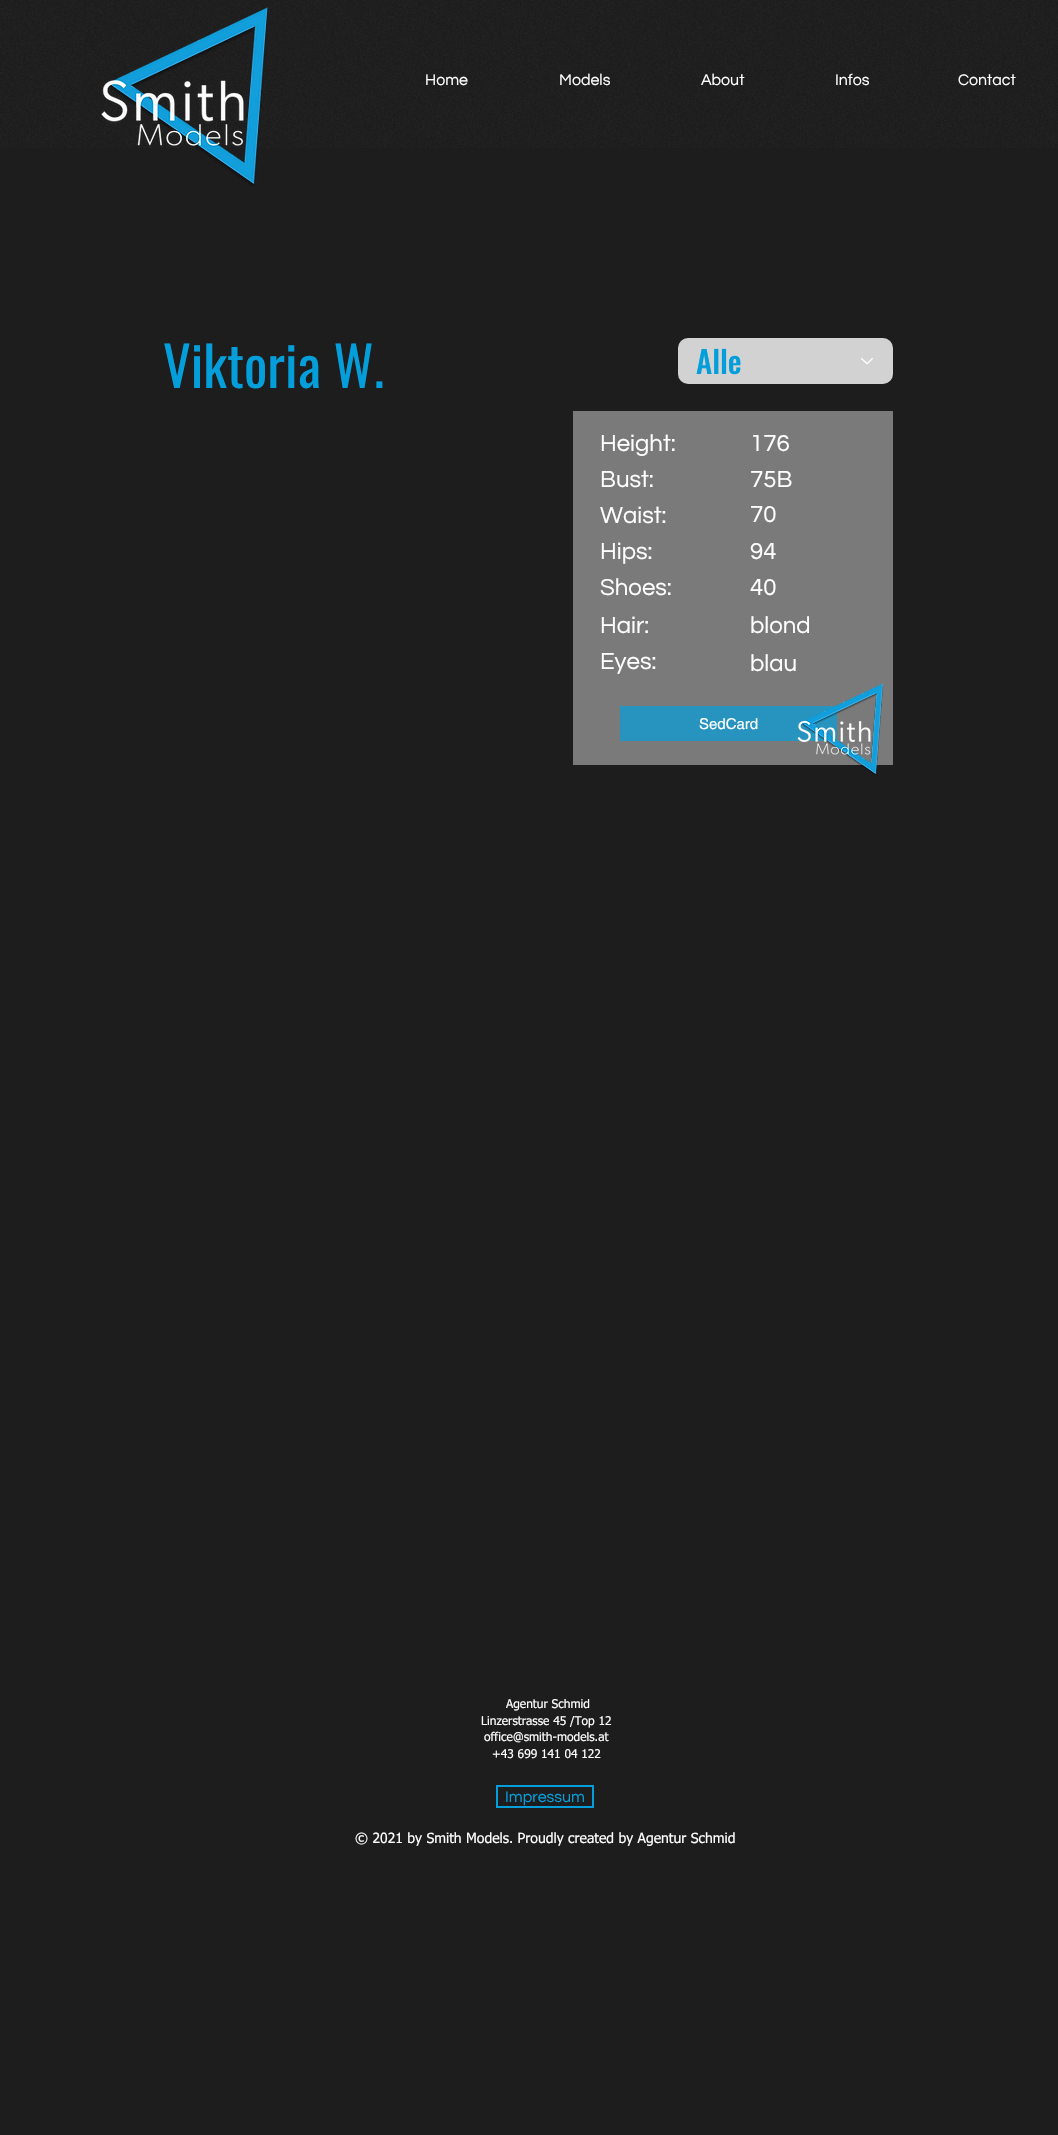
#include "include/core/SkBlurTypes.h"
#include "include/core/SkCanvas.h"
#include "include/core/SkData.h"
#include "include/core/SkFont.h"
#include "include/core/SkFontMgr.h"
#include "include/core/SkImage.h"
#include "include/core/SkMaskFilter.h"
#include "include/core/SkPaint.h"
#include "include/core/SkPathBuilder.h"
#include "include/core/SkTextBlob.h"
#include "include/effects/SkDashPathEffect.h"
#include "include/effects/SkGradientShader.h"
#include "include/utils/SkParsePath.h"

extern sk_sp<SkFontMgr> fontMgr;

void draw(SkCanvas* canvas) {
    SkPaint p;
    p.setAntiAlias(true);
    auto font = [&](const char* family, int weight, float size, bool italic = false) {
        SkFontStyle style(weight, SkFontStyle::kNormal_Width,
            italic ? SkFontStyle::kItalic_Slant : SkFontStyle::kUpright_Slant);
        SkFont result(fontMgr->matchFamilyStyle(family, style), size);
        result.setSubpixel(true);
        return result;
    };
    auto drawPhoto = [&](const char* path, float l, float t, float r, float b) {
        auto image = SkImages::DeferredFromEncodedData(SkData::MakeFromFileName(path));
        canvas->drawImageRect(image, SkRect::MakeLTRB(l, t, r, b), SkSamplingOptions());
    };
    canvas->clear(0xFF1D1D1D);
    drawPhoto("media/1.png", 0, 0, 1058, 148);
    drawPhoto("media/2.png", 101, 7, 268, 186);
    auto font1 = font("Questrial", 400, 16);
    p.setColor(0xFFFFFFFF);
    {
        const struct { const char* s; float x, y; } items[] = {
            {"Home", 425, 85},
            {"Models", 559, 85},
            {"About", 701, 85},
            {"Infos", 835, 85},
            {"Contact", 958, 85},
        };
        for (auto [s, x, y] : items) {
            canvas->drawString(s, x, y, font1, p);
        }
    }
    auto font2 = font("Oswald", 400, 55);
    p.setColor(0xFF049FDB);
    canvas->drawString("Viktoria W.", 163, 388, font2, p);
    p.setColor(0xFFD2D2D2);
    canvas->drawRoundRect(SkRect::MakeLTRB(678, 338, 893, 384), 10, 10, p);
    auto font3 = font("Oswald", 500, 31);
    p.setColor(0xFF049FDB);
    canvas->drawString("Alle", 696, 374, font3, p);
    drawPhoto("media/3.png", 861, 358, 873, 365);
    p.setColor(0xFF7A7A7A);
    canvas->drawRect(SkRect::MakeLTRB(573, 411, 893, 765), p);
    auto font4 = font("Questrial", 400, 24);
    p.setColor(0xFFFFFFFF);
    {
        const struct { const char* s; float x, y; } items[] = {
            {"Height:", 600, 451},
            {"176", 750, 451},
            {"Bust:", 600, 487},
            {"75B", 750, 487},
            {"Waist:", 600, 523},
            {"70", 750, 522},
            {"Hips:", 600, 559},
            {"94", 750, 559},
            {"Shoes:", 600, 595},
            {"40", 750, 595},
            {"Hair:", 600, 633},
            {"blond", 750, 633},
            {"Eyes:", 600, 669},
            {"blau", 750, 671},
        };
        for (auto [s, x, y] : items) {
            canvas->drawString(s, x, y, font4, p);
        }
    }
    p.setColor(0xFF2694BF);
    canvas->drawRect(SkRect::MakeLTRB(620, 706, 837, 741), p);
    auto font5 = font("helvetica", 400, 15);
    p.setColor(0xFFFFFFFF);
    canvas->drawString("SedCard", 699, 729, font5, p);
    drawPhoto("media/4.png", 797, 683, 884, 775);
    auto font6 = font("tahoma", 400, 12);
    {
        const struct { const char* s; float x, y; } items[] = {
            {"Agentur Schmid", 506, 1708},
            {"Linzerstrasse 45 /Top 12", 481, 1725},
            {"office@smith-models.at", 484, 1741},
            {"+43 699 141 04 122", 492, 1758},
        };
        for (auto [s, x, y] : items) {
            canvas->drawString(s, x, y, font6, p);
        }
    }
    p.setStyle(SkPaint::kStroke_Style);
    p.setStrokeWidth(2);
    p.setColor(0xFF049FDB);
    canvas->drawRect(SkRect::MakeLTRB(497, 1786, 593, 1807), p);
    p.setStyle(SkPaint::kFill_Style);
    canvas->drawString("Impressum", 505, 1802, font1, p);
    auto font7 = font("tahoma", 400, 14);
    p.setColor(0xFFFFFFFF);
    canvas->drawString("© 2021 by Smith Models. Proudly created by Agentur Schmid", 355, 1843, font7, p);
}
